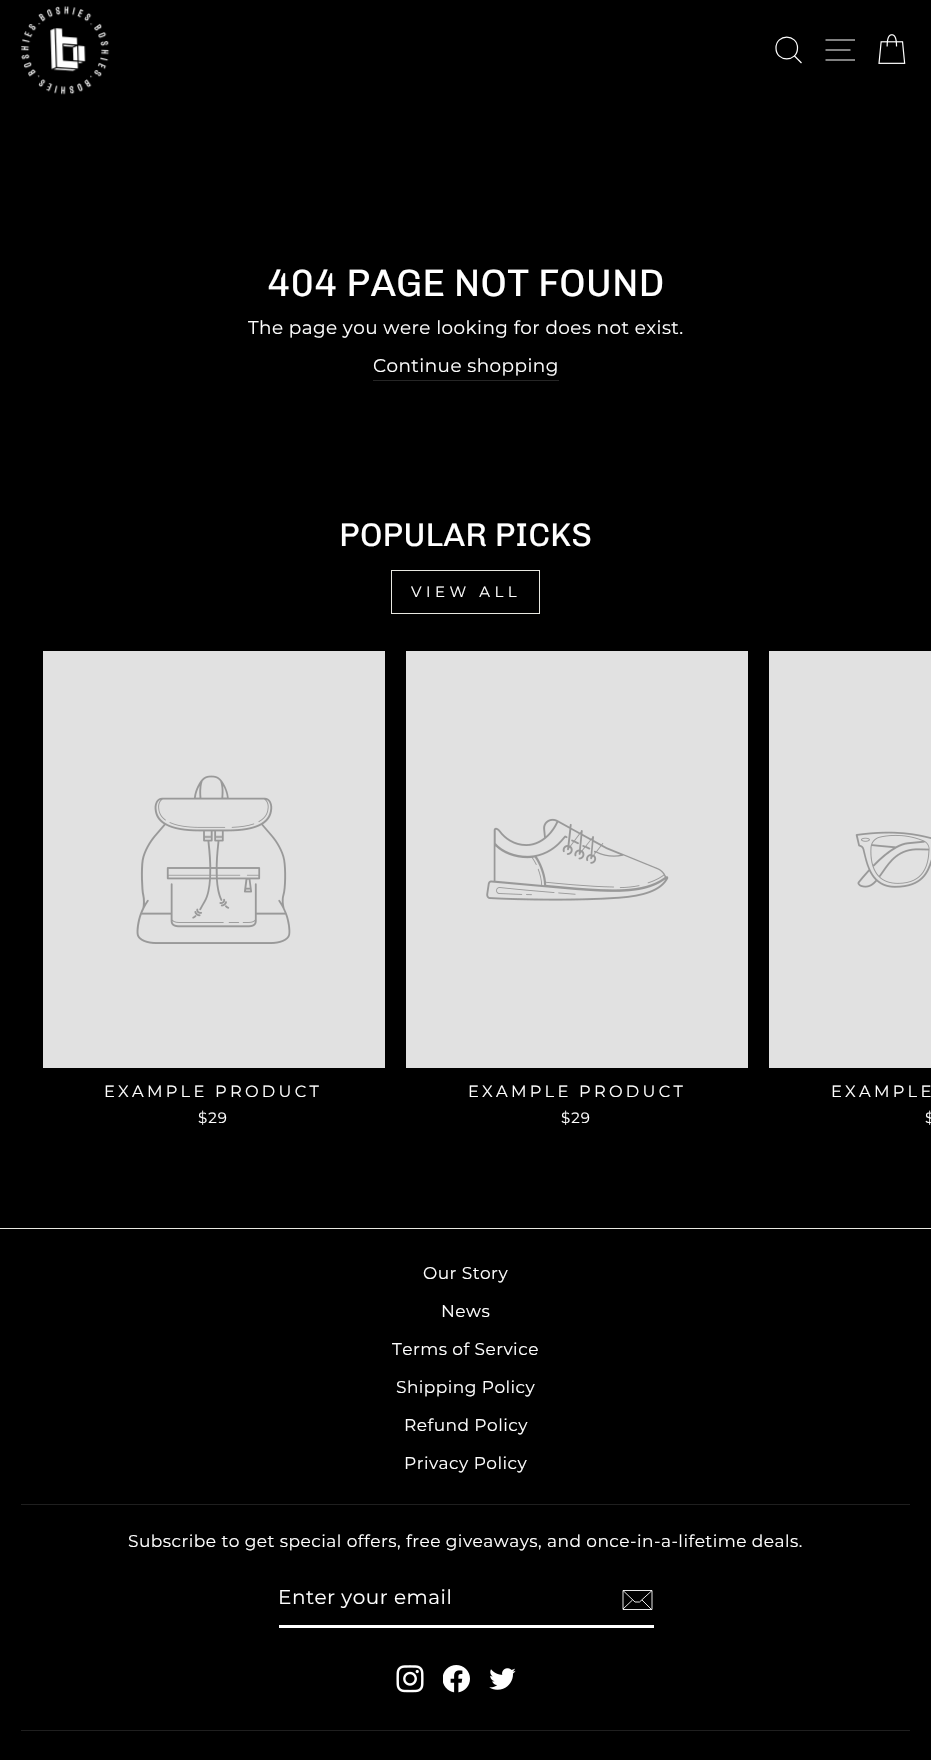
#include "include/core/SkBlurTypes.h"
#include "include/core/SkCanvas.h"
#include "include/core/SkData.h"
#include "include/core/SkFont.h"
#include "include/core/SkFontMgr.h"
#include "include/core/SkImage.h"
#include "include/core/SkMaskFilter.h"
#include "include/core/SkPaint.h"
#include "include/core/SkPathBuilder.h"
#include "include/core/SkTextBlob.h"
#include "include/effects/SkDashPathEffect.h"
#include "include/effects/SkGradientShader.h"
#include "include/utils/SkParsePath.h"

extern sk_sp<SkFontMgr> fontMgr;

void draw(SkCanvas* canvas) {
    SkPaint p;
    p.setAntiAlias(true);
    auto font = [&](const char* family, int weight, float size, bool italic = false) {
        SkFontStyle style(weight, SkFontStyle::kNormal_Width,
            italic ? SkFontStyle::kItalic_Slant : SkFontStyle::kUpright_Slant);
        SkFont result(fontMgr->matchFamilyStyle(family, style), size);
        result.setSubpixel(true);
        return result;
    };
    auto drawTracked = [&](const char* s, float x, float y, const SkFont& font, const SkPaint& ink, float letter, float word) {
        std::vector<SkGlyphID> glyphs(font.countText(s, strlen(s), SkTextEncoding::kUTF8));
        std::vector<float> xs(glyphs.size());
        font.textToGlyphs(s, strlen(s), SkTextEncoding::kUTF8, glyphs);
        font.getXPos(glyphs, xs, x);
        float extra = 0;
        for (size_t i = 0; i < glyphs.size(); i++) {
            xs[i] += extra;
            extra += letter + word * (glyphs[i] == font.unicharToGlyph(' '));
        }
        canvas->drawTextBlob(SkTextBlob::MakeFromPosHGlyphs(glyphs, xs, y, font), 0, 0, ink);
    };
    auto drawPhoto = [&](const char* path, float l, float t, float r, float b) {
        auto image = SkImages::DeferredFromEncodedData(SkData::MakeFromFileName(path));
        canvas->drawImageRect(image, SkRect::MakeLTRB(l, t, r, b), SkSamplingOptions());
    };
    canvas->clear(0xFF000000);
    drawPhoto("media/1.png", 21, 6, 110, 95);
    p.setStyle(SkPaint::kStroke_Style);
    p.setStrokeWidth(1.2f);
    p.setColor(0xFFFFFFFF);
    canvas->drawPath(SkPathBuilder().moveTo(797.5f, 48).cubicTo(797.5f, 62.5f, 776, 62.5f, 776, 48).cubicTo(776, 33.5f, 797.5f, 33.5f, 797.5f, 48).close().moveTo(801.5f, 63).lineTo(794.5f, 56).detach(), p);
    canvas->drawPath(SkPathBuilder().moveTo(825.5f, 40).lineTo(855, 40).moveTo(825.5f, 50).lineTo(850.5f, 50).moveTo(825.5f, 60).lineTo(855, 60).detach(), p);
    drawPhoto("media/2.png", 878, 34, 906, 64);
    auto font1 = font("Chivo", 400, 38.25f);
    p.setStyle(SkPaint::kFill_Style);
    canvas->drawString("404 PAGE NOT FOUND", 267, 296, font1, p);
    auto font2 = font("Montserrat", 400, 18.4f);
    drawTracked("The page you were looking for does not exist.", 248, 334, font2, p, 0.45f, 0);
    p.setColor(0xFF262626);
    canvas->drawRect(SkRect::MakeLTRB(373, 380, 559, 381), p);
    p.setColor(0xFFFFFFFF);
    drawTracked("Continue shopping", 373, 372, font2, p, 0.45f, 0);
    auto font3 = font("Chivo", 400, 32.75f);
    canvas->drawString("POPULAR PICKS", 339, 546, font3, p);
    p.setStyle(SkPaint::kStroke_Style);
    p.setStrokeWidth(1);
    p.setColor(0xFFE8E8E1);
    canvas->drawRect(SkRect::MakeLTRB(391.5f, 570.5f, 539.5f, 613.5f), p);
    auto font4 = font("Montserrat", 400, 15);
    p.setStyle(SkPaint::kFill_Style);
    p.setColor(0xFFFFFFFF);
    drawTracked("VIEW ALL", 411, 597, font4, p, 4.5f, 0);
    p.setColor(0xFFE1E1E1);
    canvas->drawRect(SkRect::MakeLTRB(43, 651, 385, 1068), p);
    drawPhoto("media/3.png", 136, 775, 291, 944);
    auto font5 = font("Montserrat", 400, 16.25f);
    p.setColor(0xFFFFFFFF);
    drawTracked("EXAMPLE PRODUCT", 104, 1097, font5, p, 3.25f, 0);
    drawTracked("$29", 198, 1123, font4, p, 1, 0);
    p.setColor(0xFFE1E1E1);
    canvas->drawRect(SkRect::MakeLTRB(406, 651, 748, 1068), p);
    drawPhoto("media/4.png", 486, 818, 669, 901);
    p.setColor(0xFFFFFFFF);
    drawTracked("EXAMPLE PRODUCT", 468, 1097, font5, p, 3.25f, 0);
    drawTracked("$29", 561, 1123, font4, p, 1, 0);
    p.setColor(0xFFE1E1E1);
    canvas->drawRect(SkRect::MakeLTRB(769, 651, 931, 1068), p);
    drawPhoto("media/5.png", 855, 831, 931, 888);
    p.setColor(0xFFFFFFFF);
    drawTracked("EXAMPLE", 831, 1097, font5, p, 3.25f, 0);
    drawTracked("$", 925, 1123, font4, p, 1, 0);
    p.setColor(0xFFE8E8E1);
    canvas->drawRect(SkRect::MakeLTRB(0, 1228, 931, 1229), p);
    auto font6 = font("Montserrat", 400, 17);
    p.setColor(0xFFFFFFFF);
    {
        const struct { const char* s; float x, y; } items[] = {
            {"Our Story", 423, 1279},
            {"News", 441, 1317},
            {"Terms of Service", 392, 1355},
            {"Shipping Policy", 396, 1393},
            {"Refund Policy", 404, 1431},
            {"Privacy Policy", 404, 1469},
        };
        for (auto [s, x, y] : items) {
            drawTracked(s, x, y, font6, p, 0.45f, 0);
        }
    }
    p.setColor(0xFF1F1F1F);
    canvas->drawRect(SkRect::MakeLTRB(21, 1504, 910, 1505), p);
    p.setColor(0xFFFFFFFF);
    drawTracked("Subscribe to get special offers, free giveaways, and once-in-a-lifetime deals.", 128, 1547, font6, p, 0.45f, 0);
    canvas->drawRect(SkRect::MakeLTRB(279, 1625, 654, 1628), p);
    auto font7 = font("Montserrat", 400, 20);
    drawTracked("Enter your email", 278, 1604, font7, p, 0.5f, 0);
    p.setStyle(SkPaint::kStroke_Style);
    p.setStrokeWidth(0.9f);
    canvas->drawPath(SkPathBuilder().moveTo(652, 1609.5f).lineTo(623, 1609.5f).lineTo(623, 1590.5f).lineTo(652, 1590.5f).close().moveTo(623, 1590.5f).lineTo(635, 1602).lineTo(639.5f, 1602).lineTo(652, 1590.5f).moveTo(632.5f, 1600).lineTo(623, 1609).moveTo(651.5f, 1609.5f).lineTo(642, 1600).detach(), p);
    drawPhoto("media/6.png", 396, 1665, 424, 1693);
    drawPhoto("media/7.png", 443, 1665, 470, 1693);
    drawPhoto("media/8.png", 489, 1668, 516, 1690);
    p.setStyle(SkPaint::kFill_Style);
    p.setColor(0xFF1F1F1F);
    canvas->drawRect(SkRect::MakeLTRB(21, 1730, 910, 1731), p);
}
